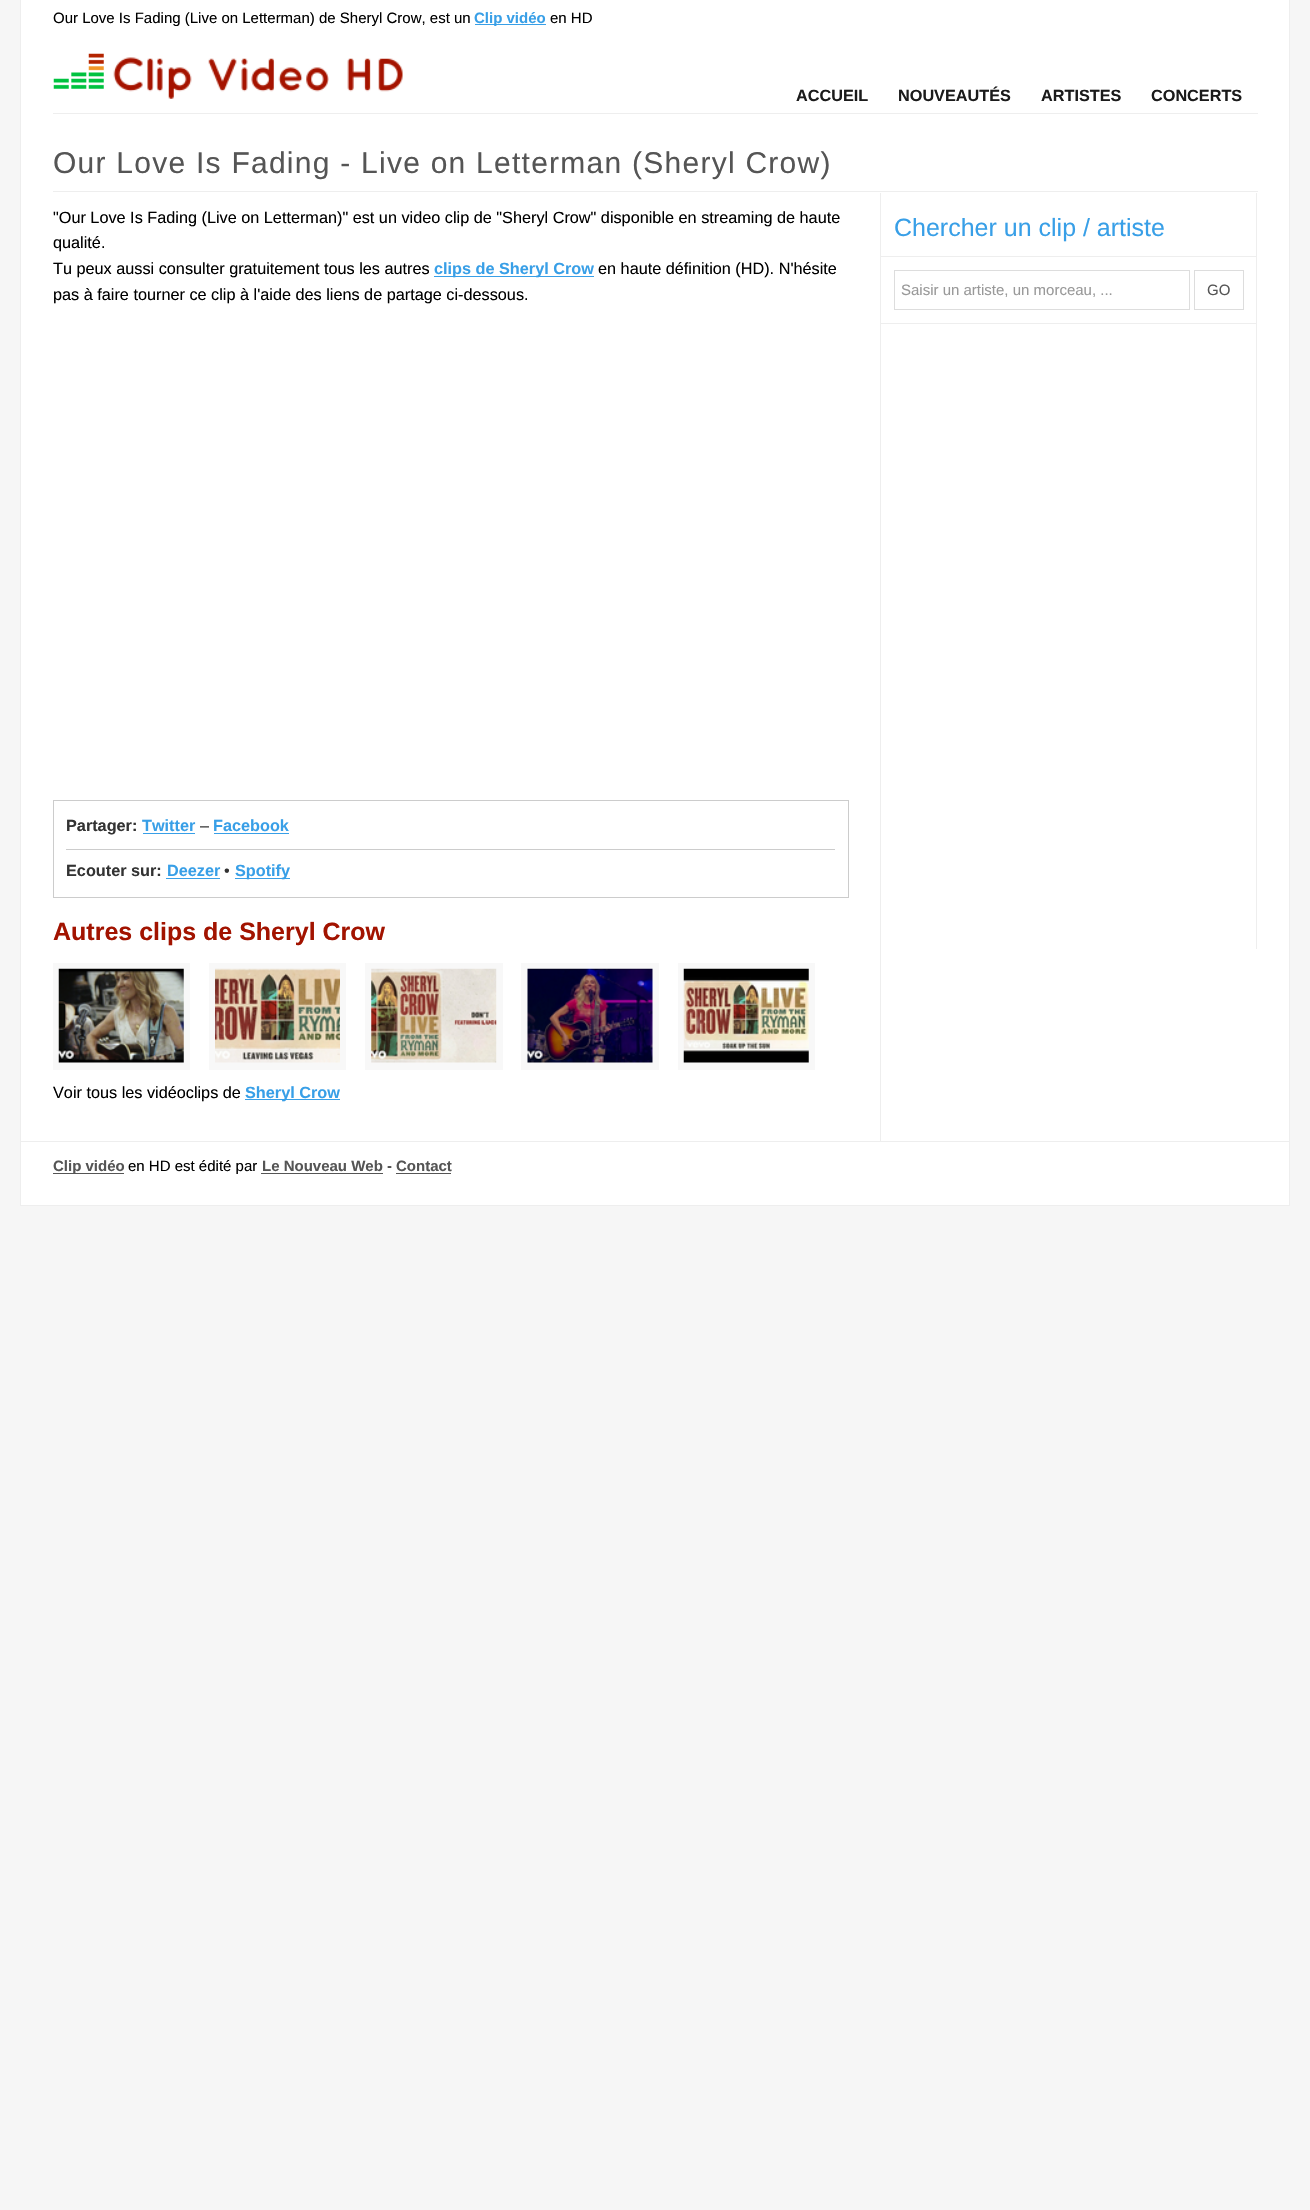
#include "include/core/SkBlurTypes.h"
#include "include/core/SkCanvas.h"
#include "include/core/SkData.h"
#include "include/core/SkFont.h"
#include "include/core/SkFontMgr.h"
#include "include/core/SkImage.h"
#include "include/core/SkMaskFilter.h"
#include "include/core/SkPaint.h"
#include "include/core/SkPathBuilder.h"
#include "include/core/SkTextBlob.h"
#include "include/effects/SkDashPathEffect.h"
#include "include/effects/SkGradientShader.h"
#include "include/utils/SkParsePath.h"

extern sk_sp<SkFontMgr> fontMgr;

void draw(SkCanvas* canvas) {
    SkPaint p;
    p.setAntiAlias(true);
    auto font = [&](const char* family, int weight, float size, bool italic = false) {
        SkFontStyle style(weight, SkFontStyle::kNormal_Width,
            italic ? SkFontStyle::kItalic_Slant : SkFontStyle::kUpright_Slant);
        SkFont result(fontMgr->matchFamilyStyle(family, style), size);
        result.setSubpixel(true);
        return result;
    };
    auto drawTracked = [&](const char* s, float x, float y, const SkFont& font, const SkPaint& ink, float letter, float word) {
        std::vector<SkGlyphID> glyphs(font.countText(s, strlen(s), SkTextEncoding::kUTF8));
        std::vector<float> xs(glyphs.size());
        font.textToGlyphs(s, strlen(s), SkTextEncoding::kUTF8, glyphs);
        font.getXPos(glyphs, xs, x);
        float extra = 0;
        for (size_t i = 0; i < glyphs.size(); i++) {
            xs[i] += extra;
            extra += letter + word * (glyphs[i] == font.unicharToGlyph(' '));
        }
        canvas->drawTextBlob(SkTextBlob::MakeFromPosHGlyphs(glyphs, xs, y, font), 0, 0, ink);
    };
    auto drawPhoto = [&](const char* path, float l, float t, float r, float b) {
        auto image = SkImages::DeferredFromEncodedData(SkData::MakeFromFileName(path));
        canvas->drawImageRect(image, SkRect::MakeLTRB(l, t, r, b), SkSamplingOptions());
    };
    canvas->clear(0xFFF6F6F6);
    {
        const struct { float l, t, r, b; SkColor color; } items[] = {
            {21, 0, 1289, 1141, 0xFFFFFFFF},
            {1289, 0, 1290, 1141, 0xFFEEEEEE},
            {20, 0, 21, 1141, 0xFFEEEEEE},
        };
        for (auto [l, t, r, b, color] : items) {
            p.setColor(color);
            canvas->drawRect(SkRect::MakeLTRB(l, t, r, b), p);
        }
    }
    auto font1 = font("Liberation Sans", 400, 15);
    p.setColor(0xFF000000);
    canvas->drawString("Our Love Is Fading (Live on Letterman) de Sheryl Crow, est un", 53, 23, font1, p);
    p.setColor(0xFF389FE7);
    canvas->drawRect(SkRect::MakeLTRB(475, 24, 546, 25), p);
    auto font2 = font("Liberation Sans", 700, 15);
    canvas->drawString("Clip vidéo", 474, 23, font2, p);
    p.setColor(0xFF000000);
    canvas->drawString("en HD", 550, 23, font1, p);
    p.setColor(0xFFEEEEEE);
    canvas->drawRect(SkRect::MakeLTRB(53, 113, 1258, 114), p);
    drawPhoto("media/1.png", 53, 53, 403, 99);
    auto font3 = font("Liberation Sans", 700, 16.25f);
    p.setColor(0xFF1B1B1B);
    {
        const struct { const char* s; float x, y; } items[] = {
            {"ACCUEIL", 796, 101},
            {"NOUVEAUTÉS", 898, 101},
            {"ARTISTES", 1041, 101},
            {"CONCERTS", 1151, 101},
        };
        for (auto [s, x, y] : items) {
            canvas->drawString(s, x, y, font3, p);
        }
    }
    p.setColor(0xFFEEEEEE);
    canvas->drawRect(SkRect::MakeLTRB(53, 191, 1258, 192), p);
    auto font4 = font("Liberation Sans", 400, 30);
    p.setColor(0xFF555555);
    drawTracked("Our Love Is Fading - Live on Letterman (Sheryl Crow)", 53, 173, font4, p, 1.25f, 0);
    p.setColor(0xFFEEEEEE);
    canvas->drawRect(SkRect::MakeLTRB(880, 193, 881, 1141), p);
    auto font5 = font("Liberation Sans", 400, 16.25f);
    p.setColor(0xFF000000);
    {
        const struct { const char* s; float x, y; } items[] = {
            {"\"Our Love Is Fading (Live on Letterman)\" est un video clip de \"Sheryl Crow\" disponible en streaming de haute", 53, 223},
            {"qualité.", 53, 248},
            {"Tu peux aussi consulter gratuitement tous les autres", 53, 274},
        };
        for (auto [s, x, y] : items) {
            canvas->drawString(s, x, y, font5, p);
        }
    }
    p.setColor(0xFF389FE7);
    canvas->drawRect(SkRect::MakeLTRB(434, 276, 594, 277), p);
    canvas->drawString("clips de Sheryl Crow", 434, 274, font3, p);
    p.setColor(0xFF000000);
    canvas->drawString("en haute définition (HD). N'hésite", 598, 274, font5, p);
    canvas->drawString("pas à faire tourner ce clip à l'aide des liens de partage ci-dessous.", 53, 300, font5, p);
    p.setStyle(SkPaint::kStroke_Style);
    p.setStrokeWidth(1);
    p.setColor(0xFFCCCCCC);
    canvas->drawRect(SkRect::MakeLTRB(53.5f, 800.5f, 848.5f, 897.5f), p);
    p.setStyle(SkPaint::kFill_Style);
    p.setColor(0xFF333333);
    canvas->drawString("Partager:", 66, 831, font3, p);
    p.setColor(0xFF389FE7);
    canvas->drawString("Twitter", 142, 831, font3, p);
    canvas->drawRect(SkRect::MakeLTRB(143, 833, 195, 834), p);
    p.setColor(0xFF333333);
    canvas->drawString("–", 200, 831, font5, p);
    p.setColor(0xFF389FE7);
    canvas->drawString("Facebook", 213, 831, font3, p);
    canvas->drawRect(SkRect::MakeLTRB(214, 833, 289, 834), p);
    p.setColor(0xFFCCCCCC);
    canvas->drawRect(SkRect::MakeLTRB(66, 849, 835, 850), p);
    p.setColor(0xFF333333);
    canvas->drawString("Ecouter sur:", 66, 876, font3, p);
    p.setColor(0xFF389FE7);
    canvas->drawString("Deezer", 167, 876, font3, p);
    canvas->drawRect(SkRect::MakeLTRB(166, 878, 220, 879), p);
    p.setColor(0xFF333333);
    canvas->drawString("•", 224, 876, font5, p);
    p.setColor(0xFF389FE7);
    canvas->drawRect(SkRect::MakeLTRB(235, 878, 290, 879), p);
    canvas->drawString("Spotify", 235, 876, font3, p);
    auto font6 = font("Liberation Sans", 700, 25);
    p.setColor(0xFFA21300);
    canvas->drawString("Autres clips de Sheryl Crow", 53, 940, font6, p);
    p.setColor(0xFFF8F8F8);
    canvas->drawRect(SkRect::MakeLTRB(53, 963, 190, 1070), p);
    drawPhoto("media/2.png", 58, 968, 184, 1063);
    canvas->drawRect(SkRect::MakeLTRB(209, 963, 346, 1070), p);
    drawPhoto("media/3.png", 215, 968, 340, 1063);
    canvas->drawRect(SkRect::MakeLTRB(365, 963, 503, 1070), p);
    drawPhoto("media/4.png", 371, 968, 497, 1063);
    canvas->drawRect(SkRect::MakeLTRB(521, 963, 659, 1070), p);
    drawPhoto("media/5.png", 527, 968, 653, 1063);
    canvas->drawRect(SkRect::MakeLTRB(678, 963, 815, 1070), p);
    drawPhoto("media/6.png", 683, 968, 809, 1063);
    p.setColor(0xFF000000);
    canvas->drawString("Voir tous les vidéoclips de", 53, 1098, font5, p);
    p.setColor(0xFF389FE7);
    canvas->drawRect(SkRect::MakeLTRB(245, 1099, 340, 1100), p);
    canvas->drawString("Sheryl Crow", 245, 1098, font3, p);
    {
        const struct { float l, t, r, b; SkColor color; } items[] = {
            {1256, 193, 1257, 949, 0xFFEEEEEE},
            {881, 323, 1256, 324, 0xFFEEEEEE},
            {881, 256, 1256, 257, 0xFFEEEEEE},
        };
        for (auto [l, t, r, b, color] : items) {
            p.setColor(color);
            canvas->drawRect(SkRect::MakeLTRB(l, t, r, b), p);
        }
    }
    auto font7 = font("Liberation Sans", 400, 25);
    p.setColor(0xFF389FE7);
    canvas->drawString("Chercher un clip / artiste", 894, 236, font7, p);
    p.setStyle(SkPaint::kStroke_Style);
    p.setColor(0xFFDDDDDD);
    canvas->drawRect(SkRect::MakeLTRB(894.5f, 270.5f, 1189.5f, 309.5f), p);
    p.setStyle(SkPaint::kFill_Style);
    p.setColor(0xFF999999);
    canvas->drawString("Saisir un artiste, un morceau, ...", 901, 295, font1, p);
    p.setStyle(SkPaint::kStroke_Style);
    p.setColor(0xFFDDDDDD);
    canvas->drawRect(SkRect::MakeLTRB(1194.5f, 270.5f, 1243.5f, 309.5f), p);
    p.setStyle(SkPaint::kFill_Style);
    p.setColor(0xFF555555);
    canvas->drawString("GO", 1207, 295, font1, p);
    p.setColor(0xFFFFFFFF);
    canvas->drawRect(SkRect::MakeLTRB(20.5f, 1141.5f, 1289.5f, 1205.5f), p);
    p.setStyle(SkPaint::kStroke_Style);
    p.setColor(0xFFEEEEEE);
    canvas->drawRect(SkRect::MakeLTRB(20.5f, 1141.5f, 1289.5f, 1205.5f), p);
    p.setStyle(SkPaint::kFill_Style);
    p.setColor(0xFF555555);
    canvas->drawRect(SkRect::MakeLTRB(53, 1173, 124, 1174), p);
    canvas->drawString("Clip vidéo", 53, 1171, font2, p);
    p.setColor(0xFF000000);
    canvas->drawString("en HD est édité par", 128, 1171, font1, p);
    p.setColor(0xFF555555);
    canvas->drawString("Le Nouveau Web", 262, 1171, font2, p);
    canvas->drawRect(SkRect::MakeLTRB(261, 1173, 383, 1174), p);
    p.setColor(0xFF000000);
    canvas->drawString("-", 387, 1171, font1, p);
    p.setColor(0xFF555555);
    canvas->drawString("Contact", 396, 1171, font2, p);
    canvas->drawRect(SkRect::MakeLTRB(396, 1173, 451, 1174), p);
}
